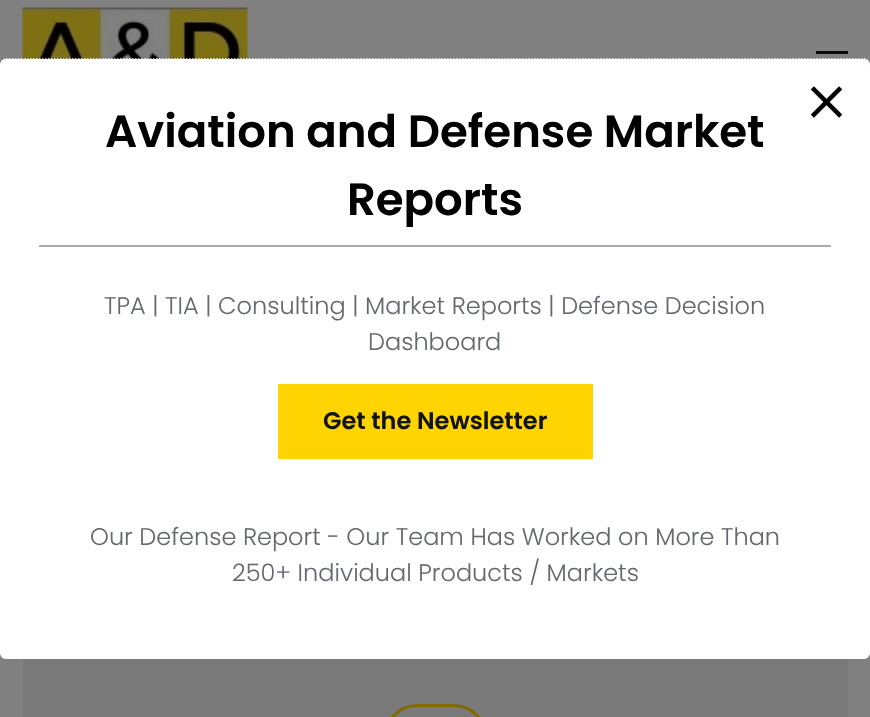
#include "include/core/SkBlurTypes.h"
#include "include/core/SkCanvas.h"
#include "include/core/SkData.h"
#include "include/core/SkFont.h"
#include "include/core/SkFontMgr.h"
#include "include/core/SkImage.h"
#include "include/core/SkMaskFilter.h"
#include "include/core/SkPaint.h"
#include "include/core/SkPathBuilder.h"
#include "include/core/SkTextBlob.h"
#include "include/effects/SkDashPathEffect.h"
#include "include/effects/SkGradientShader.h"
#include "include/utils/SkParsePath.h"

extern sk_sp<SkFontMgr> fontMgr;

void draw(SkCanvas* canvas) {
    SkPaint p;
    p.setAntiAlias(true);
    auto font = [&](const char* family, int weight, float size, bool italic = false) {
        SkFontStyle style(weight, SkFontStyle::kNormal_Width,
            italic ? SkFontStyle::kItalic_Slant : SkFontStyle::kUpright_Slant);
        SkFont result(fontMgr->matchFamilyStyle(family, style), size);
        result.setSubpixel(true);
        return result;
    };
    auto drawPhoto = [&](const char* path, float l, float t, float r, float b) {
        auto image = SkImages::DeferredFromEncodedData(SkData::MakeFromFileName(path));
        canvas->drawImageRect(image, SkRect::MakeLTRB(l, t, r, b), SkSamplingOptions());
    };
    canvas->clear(0xFF808080);
    drawPhoto("media/1.png", 22, 7, 248, 59);
    p.setColor(0xFF0A0B0B);
    canvas->drawRect(SkRect::MakeLTRB(816, 51, 848, 54), p);
    p.setColor(0xFFFFFFFF);
    canvas->drawRoundRect(SkRect::MakeLTRB(0, 59, 870, 659), 6, 6, p);
    p.setStyle(SkPaint::kStroke_Style);
    p.setStrokeWidth(1.5f);
    p.setPathEffect(SkDashPathEffect::Make({{1.5f, 1.5f}}, 0));
    canvas->drawPath(SkPathBuilder().moveTo(6, 59).lineTo(864, 59).cubicTo(867, 59, 869, 61.5f, 869, 64.5f).lineTo(869, 652.5f).cubicTo(869, 655.5f, 867, 658, 864, 658).lineTo(6, 658).cubicTo(3, 658, 1, 655.5f, 1, 652.5f).lineTo(1, 64.5f).cubicTo(1, 61.5f, 3, 59, 6, 59).close().detach(), p);
    p.setPathEffect(nullptr);
    drawPhoto("media/2.png", 810, 86, 843, 118);
    auto font1 = font("Poppins", 600, 45);
    p.setStyle(SkPaint::kFill_Style);
    p.setColor(0xFF000000);
    canvas->drawString("Aviation and Defense Market", 105, 147, font1, p);
    canvas->drawString("Reports", 347, 215, font1, p);
    p.setColor(0xFFAAABAF);
    canvas->drawRect(SkRect::MakeLTRB(39, 245, 831, 247), p);
    auto font2 = font("Poppins", 300, 24);
    p.setColor(0xFF66686F);
    canvas->drawString("TPA | TIA | Consulting | Market Reports | Defense Decision", 104, 314, font2, p);
    canvas->drawString("Dashboard", 368, 350, font2, p);
    p.setColor(0xFFFFD400);
    canvas->drawRect(SkRect::MakeLTRB(278, 384, 593, 459), p);
    auto font3 = font("Poppins", 600, 24);
    p.setColor(0xFF131515);
    canvas->drawString("Get the Newsletter", 323, 429, font3, p);
    p.setColor(0xFF66686F);
    canvas->drawString("Our Defense Report - Our Team Has Worked on More Than", 90, 545, font2, p);
    canvas->drawString("250+ Individual Products / Markets", 232, 581, font2, p);
    p.setColor(0xFF7A7A7A);
    canvas->drawRect(SkRect::MakeLTRB(23, 659, 848, 717), p);
    p.setStyle(SkPaint::kStroke_Style);
    p.setStrokeWidth(3);
    p.setColor(0xFF806A00);
    canvas->drawRoundRect(SkRect::MakeLTRB(384.5f, 705.5f, 486.5f, 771.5f), 51, 51, p);
}
